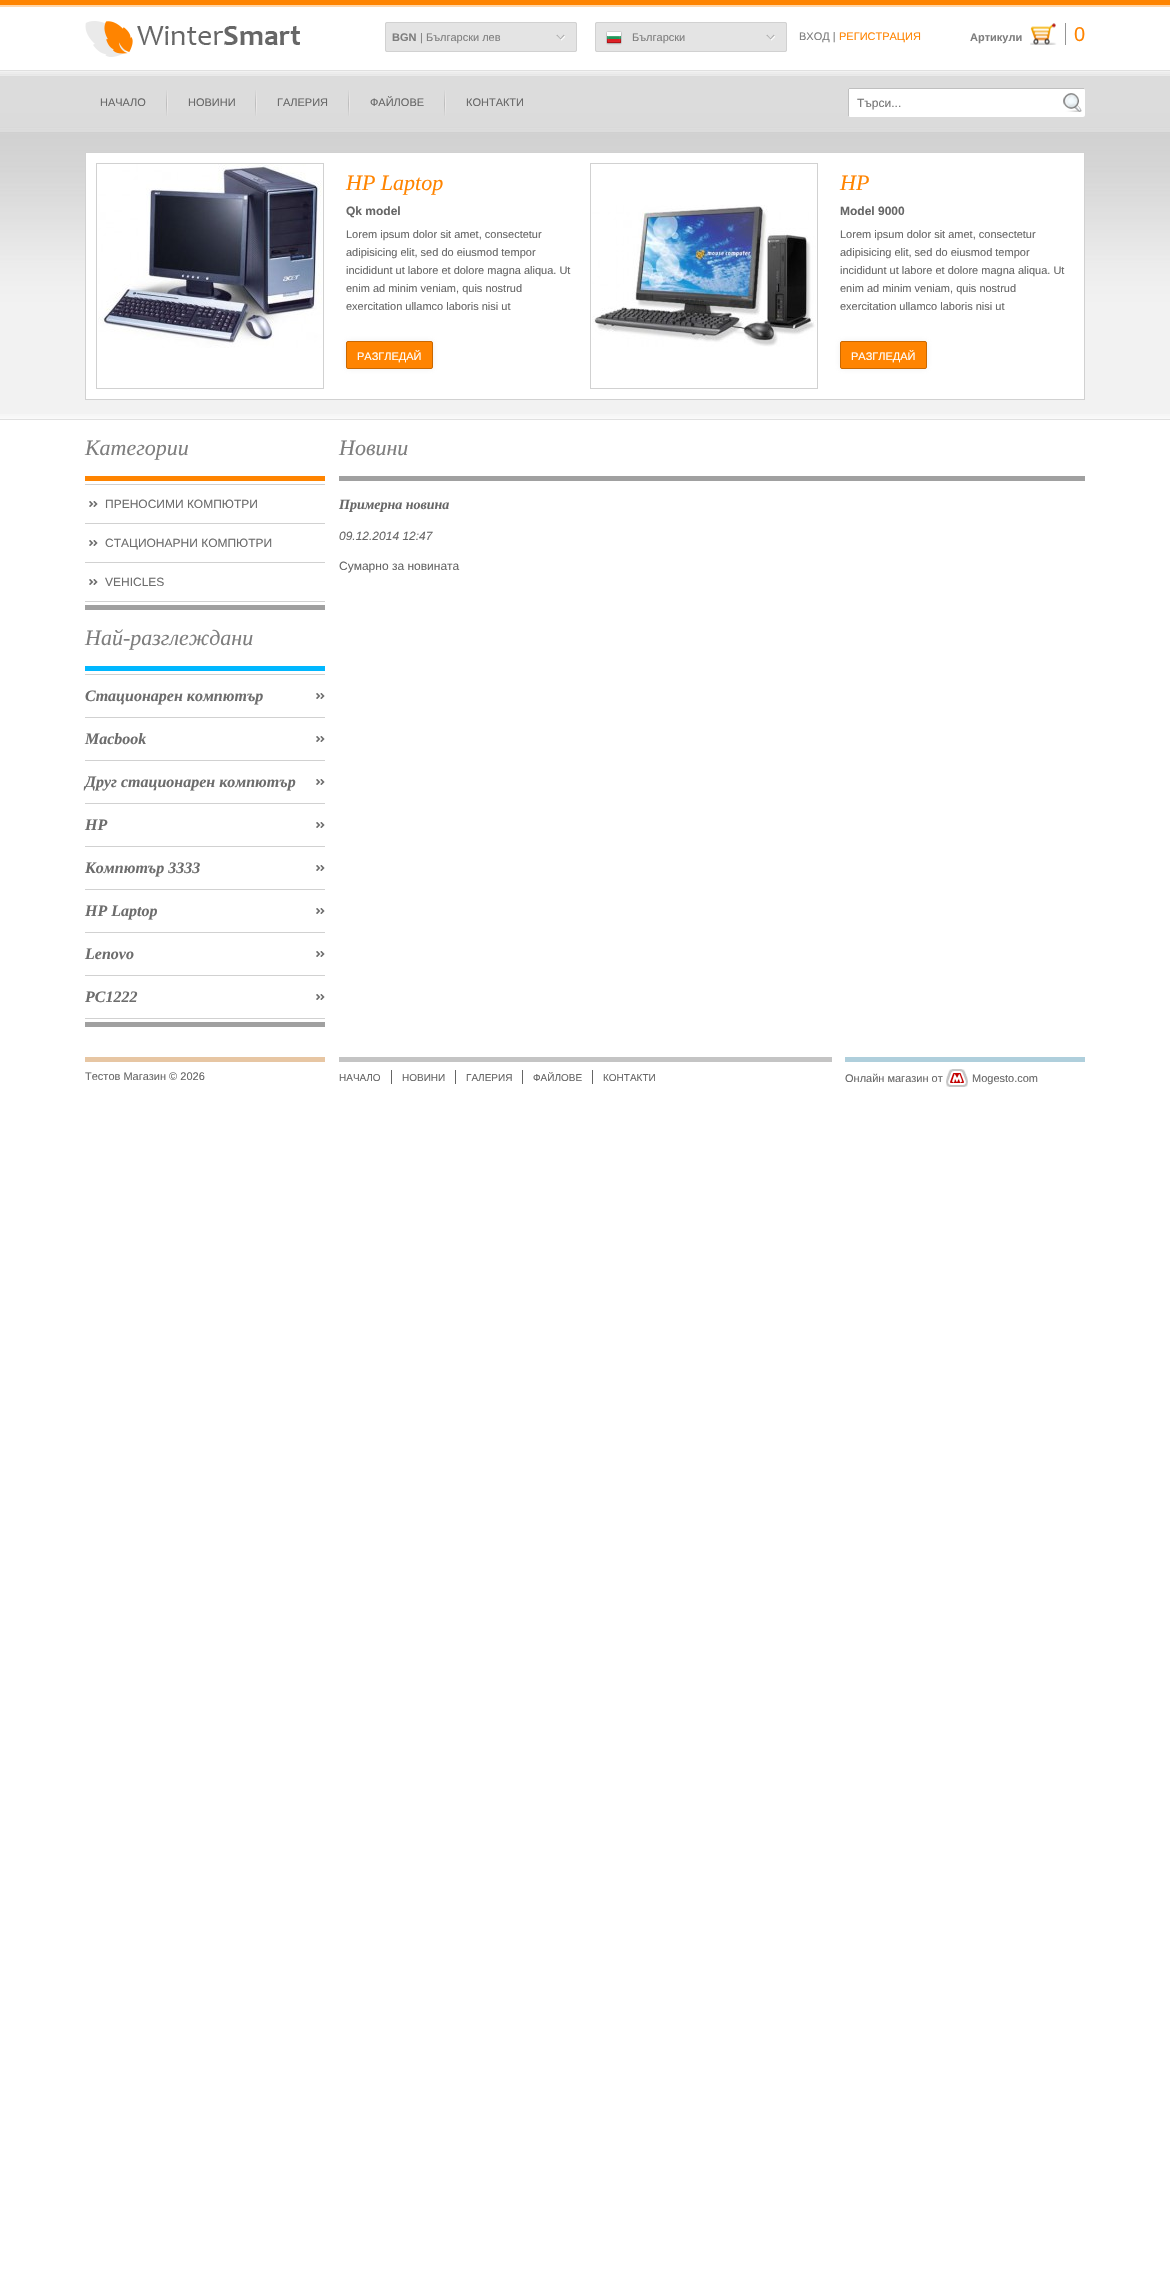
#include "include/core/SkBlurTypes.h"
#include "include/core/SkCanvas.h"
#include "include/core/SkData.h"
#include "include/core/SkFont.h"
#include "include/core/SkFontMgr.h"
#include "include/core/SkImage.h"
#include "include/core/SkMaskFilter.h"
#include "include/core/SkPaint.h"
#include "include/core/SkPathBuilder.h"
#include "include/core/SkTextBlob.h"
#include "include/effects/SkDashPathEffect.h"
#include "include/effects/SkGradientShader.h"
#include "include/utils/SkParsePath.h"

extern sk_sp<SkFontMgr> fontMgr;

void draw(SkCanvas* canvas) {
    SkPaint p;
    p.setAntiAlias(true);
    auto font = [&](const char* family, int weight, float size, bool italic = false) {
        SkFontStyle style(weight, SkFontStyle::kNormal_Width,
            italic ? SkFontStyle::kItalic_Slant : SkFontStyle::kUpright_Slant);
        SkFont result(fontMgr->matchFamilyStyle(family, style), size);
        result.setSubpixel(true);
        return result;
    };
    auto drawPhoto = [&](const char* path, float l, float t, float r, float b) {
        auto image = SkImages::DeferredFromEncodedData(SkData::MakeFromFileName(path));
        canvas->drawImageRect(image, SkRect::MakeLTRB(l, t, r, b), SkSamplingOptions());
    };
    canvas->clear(0xFFFFFFFF);
    drawPhoto("media/1.png", 0, 0, 1170, 7);
    drawPhoto("media/2.png", 85, 21, 300, 57);
    p.setColor(0xFFE4E4E4);
    canvas->drawRoundRect(SkRect::MakeLTRB(385, 22, 577, 52), 2, 2, p);
    drawPhoto("media/3.png", 556, 34, 565, 41);
    p.setStyle(SkPaint::kStroke_Style);
    p.setStrokeWidth(1);
    p.setColor(0xFFD1D1D1);
    canvas->drawRoundRect(SkRect::MakeLTRB(385.5f, 22.5f, 576.5f, 51.5f), 1.5f, 1.5f, p);
    auto font1 = font("Liberation Sans", 700, 11);
    p.setStyle(SkPaint::kFill_Style);
    p.setColor(0xFF7E7E7E);
    canvas->drawString("BGN", 392, 41, font1, p);
    auto font2 = font("Liberation Sans", 400, 11);
    canvas->drawString("| Български лев", 420, 41, font2, p);
    p.setColor(0xFFE4E4E4);
    canvas->drawRoundRect(SkRect::MakeLTRB(595, 22, 787, 52), 2, 2, p);
    drawPhoto("media/3.png", 766, 34, 775, 41);
    p.setStyle(SkPaint::kStroke_Style);
    p.setColor(0xFFD1D1D1);
    canvas->drawRoundRect(SkRect::MakeLTRB(595.5f, 22.5f, 786.5f, 51.5f), 1.5f, 1.5f, p);
    drawPhoto("media/4.png", 606, 31, 622, 45);
    p.setStyle(SkPaint::kFill_Style);
    p.setColor(0xFF7E7E7E);
    canvas->drawString("Български", 632, 41, font2, p);
    canvas->drawString("ВХОД |", 799, 40, font2, p);
    p.setColor(0xFFFF8400);
    canvas->drawString("РЕГИСТРАЦИЯ", 839, 40, font2, p);
    p.setColor(0xFF7E7E7E);
    canvas->drawString("Артикули", 970, 41, font1, p);
    drawPhoto("media/5.png", 1030, 23, 1066, 45);
    auto font3 = font("Liberation Sans", 400, 20);
    p.setColor(0xFFFF8400);
    canvas->drawString("0", 1074, 41, font3, p);
    drawPhoto("media/6.png", 0, 70, 1170, 420);
    p.setColor(0xFF676767);
    canvas->drawString("НАЧАЛО", 100, 106, font2, p);
    drawPhoto("media/7.png", 166, 90, 168, 116);
    canvas->drawString("НОВИНИ", 188, 106, font2, p);
    drawPhoto("media/7.png", 255, 90, 257, 116);
    canvas->drawString("ГАЛЕРИЯ", 277, 106, font2, p);
    drawPhoto("media/7.png", 348, 90, 350, 116);
    canvas->drawString("ФАЙЛОВЕ", 370, 106, font2, p);
    drawPhoto("media/7.png", 444, 90, 446, 116);
    canvas->drawString("КОНТАКТИ", 466, 106, font2, p);
    p.setColor(0xFFFFFFFF);
    canvas->drawPath(SkPathBuilder().moveTo(850, 89).lineTo(1083, 89).cubicTo(1084, 89, 1085, 89, 1085, 90).lineTo(1085, 115).cubicTo(1085, 116, 1084, 117, 1083, 117).lineTo(850, 117).cubicTo(849, 117, 849, 116, 849, 115).lineTo(849, 90).cubicTo(849, 89, 849, 89, 850, 89).close().detach(), p);
    p.setColor(0xFFBFBFBF);
    canvas->drawRect(SkRect::MakeLTRB(849, 88, 1084, 89), p);
    canvas->drawRect(SkRect::MakeLTRB(848, 89, 849, 116), p);
    auto font4 = font("Liberation Sans", 400, 12);
    p.setColor(0xFF757575);
    canvas->drawString("Търси...", 857, 107, font4, p);
    drawPhoto("media/8.png", 1063, 93, 1082, 112);
    p.setColor(0xFFFFFFFF);
    canvas->drawRect(SkRect::MakeLTRB(85.5f, 152.5f, 1084.5f, 399.5f), p);
    p.setStyle(SkPaint::kStroke_Style);
    p.setColor(0xFFD1D1D1);
    canvas->drawRect(SkRect::MakeLTRB(85.5f, 152.5f, 1084.5f, 399.5f), p);
    canvas->drawRect(SkRect::MakeLTRB(96.5f, 163.5f, 323.5f, 388.5f), p);
    drawPhoto("media/9.png", 98, 164, 322, 348);
    auto font5 = font("Liberation Serif", 400, 22, true);
    p.setStyle(SkPaint::kFill_Style);
    p.setColor(0xFFFF8400);
    canvas->drawString("HP Laptop", 346, 190, font5, p);
    auto font6 = font("Liberation Sans", 700, 12);
    p.setColor(0xFF676767);
    canvas->drawString("Qk model", 346, 215, font6, p);
    {
        const struct { const char* s; float x, y; } items[] = {
            {"Lorem ipsum dolor sit amet, consectetur", 346, 238},
            {"adipisicing elit, sed do eiusmod tempor", 346, 256},
            {"incididunt ut labore et dolore magna aliqua. Ut", 346, 274},
            {"enim ad minim veniam, quis nostrud", 346, 292},
            {"exercitation ullamco laboris nisi ut", 346, 310},
        };
        for (auto [s, x, y] : items) {
            canvas->drawString(s, x, y, font2, p);
        }
    }
    p.setColor(0x4DC8C8C8);
    p.setMaskFilter(SkMaskFilter::MakeBlur(kNormal_SkBlurStyle, 2.5f));
    canvas->drawRoundRect(SkRect::MakeLTRB(346, 341, 433, 369), 2, 2, p);
    p.setMaskFilter(nullptr);
    p.setColor(0xFFFF8400);
    canvas->drawRoundRect(SkRect::MakeLTRB(346.5f, 341.5f, 432.5f, 368.5f), 1.5f, 1.5f, p);
    p.setStyle(SkPaint::kStroke_Style);
    p.setColor(0xFFC96801);
    canvas->drawRoundRect(SkRect::MakeLTRB(346.5f, 341.5f, 432.5f, 368.5f), 1.5f, 1.5f, p);
    p.setStyle(SkPaint::kFill_Style);
    p.setColor(0xFFFFFFFF);
    canvas->drawString("РАЗГЛЕДАЙ", 357, 360, font2, p);
    p.setStyle(SkPaint::kStroke_Style);
    p.setColor(0xFFD1D1D1);
    canvas->drawRect(SkRect::MakeLTRB(590.5f, 163.5f, 817.5f, 388.5f), p);
    drawPhoto("media/10.png", 592, 205, 816, 347);
    p.setStyle(SkPaint::kFill_Style);
    p.setColor(0xFFFF8400);
    canvas->drawString("HP", 840, 190, font5, p);
    p.setColor(0xFF676767);
    canvas->drawString("Model 9000", 840, 215, font6, p);
    {
        const struct { const char* s; float x, y; } items[] = {
            {"Lorem ipsum dolor sit amet, consectetur", 840, 238},
            {"adipisicing elit, sed do eiusmod tempor", 840, 256},
            {"incididunt ut labore et dolore magna aliqua. Ut", 840, 274},
            {"enim ad minim veniam, quis nostrud", 840, 292},
            {"exercitation ullamco laboris nisi ut", 840, 310},
        };
        for (auto [s, x, y] : items) {
            canvas->drawString(s, x, y, font2, p);
        }
    }
    p.setColor(0x4DC8C8C8);
    p.setMaskFilter(SkMaskFilter::MakeBlur(kNormal_SkBlurStyle, 2.5f));
    canvas->drawRoundRect(SkRect::MakeLTRB(840, 341, 927, 369), 2, 2, p);
    p.setMaskFilter(nullptr);
    p.setColor(0xFFFF8400);
    canvas->drawRoundRect(SkRect::MakeLTRB(840.5f, 341.5f, 926.5f, 368.5f), 1.5f, 1.5f, p);
    p.setStyle(SkPaint::kStroke_Style);
    p.setColor(0xFFC96801);
    canvas->drawRoundRect(SkRect::MakeLTRB(840.5f, 341.5f, 926.5f, 368.5f), 1.5f, 1.5f, p);
    p.setStyle(SkPaint::kFill_Style);
    p.setColor(0xFFFFFFFF);
    canvas->drawString("РАЗГЛЕДАЙ", 851, 360, font2, p);
    p.setColor(0xFFFF8400);
    canvas->drawRect(SkRect::MakeLTRB(85, 476, 325, 481), p);
    p.setColor(0xFF7E7E7E);
    canvas->drawString("Категории", 85, 455, font5, p);
    p.setColor(0xFFD1D1D1);
    canvas->drawRect(SkRect::MakeLTRB(85, 484, 325, 485), p);
    p.setColor(0xFFA0A0A0);
    canvas->drawRect(SkRect::MakeLTRB(85, 605, 325, 610), p);
    drawPhoto("media/11.png", 89, 501, 98, 507);
    p.setColor(0xFFD1D1D1);
    canvas->drawRect(SkRect::MakeLTRB(85, 523, 325, 524), p);
    p.setColor(0xFF6D6D6D);
    canvas->drawString("ПРЕНОСИМИ КОМПЮТРИ", 105, 508, font4, p);
    drawPhoto("media/11.png", 89, 540, 98, 546);
    p.setColor(0xFFD1D1D1);
    canvas->drawRect(SkRect::MakeLTRB(85, 562, 325, 563), p);
    p.setColor(0xFF6D6D6D);
    canvas->drawString("СТАЦИОНАРНИ КОМПЮТРИ", 105, 547, font4, p);
    drawPhoto("media/11.png", 89, 579, 98, 585);
    p.setColor(0xFFD1D1D1);
    canvas->drawRect(SkRect::MakeLTRB(85, 601, 325, 602), p);
    p.setColor(0xFF6D6D6D);
    canvas->drawString("VEHICLES", 105, 586, font4, p);
    p.setColor(0xFF00B7FF);
    canvas->drawRect(SkRect::MakeLTRB(85, 666, 325, 671), p);
    p.setColor(0xFF7E7E7E);
    canvas->drawString("Най-разглеждани", 85, 645, font5, p);
    p.setColor(0xFFD1D1D1);
    canvas->drawRect(SkRect::MakeLTRB(85, 674, 325, 675), p);
    p.setColor(0xFFA0A0A0);
    canvas->drawRect(SkRect::MakeLTRB(85, 1022, 325, 1027), p);
    drawPhoto("media/11.png", 316, 693, 325, 699);
    p.setColor(0xFFD1D1D1);
    canvas->drawRect(SkRect::MakeLTRB(85, 717, 325, 718), p);
    auto font7 = font("Liberation Serif", 700, 16, true);
    p.setColor(0xFF6D6D6D);
    canvas->drawString("Стационарен компютър", 85, 701, font7, p);
    drawPhoto("media/11.png", 316, 736, 325, 742);
    p.setColor(0xFFD1D1D1);
    canvas->drawRect(SkRect::MakeLTRB(85, 760, 325, 761), p);
    p.setColor(0xFF6D6D6D);
    canvas->drawString("Macbook", 85, 744, font7, p);
    drawPhoto("media/11.png", 316, 779, 325, 785);
    p.setColor(0xFFD1D1D1);
    canvas->drawRect(SkRect::MakeLTRB(85, 803, 325, 804), p);
    p.setColor(0xFF6D6D6D);
    canvas->drawString("Друг стационарен компютър", 85, 787, font7, p);
    drawPhoto("media/11.png", 316, 822, 325, 828);
    p.setColor(0xFFD1D1D1);
    canvas->drawRect(SkRect::MakeLTRB(85, 846, 325, 847), p);
    p.setColor(0xFF6D6D6D);
    canvas->drawString("HP", 85, 830, font7, p);
    drawPhoto("media/11.png", 316, 865, 325, 871);
    p.setColor(0xFFD1D1D1);
    canvas->drawRect(SkRect::MakeLTRB(85, 889, 325, 890), p);
    p.setColor(0xFF6D6D6D);
    canvas->drawString("Компютър 3333", 85, 873, font7, p);
    drawPhoto("media/11.png", 316, 908, 325, 914);
    p.setColor(0xFFD1D1D1);
    canvas->drawRect(SkRect::MakeLTRB(85, 932, 325, 933), p);
    p.setColor(0xFF6D6D6D);
    canvas->drawString("HP Laptop", 85, 916, font7, p);
    drawPhoto("media/11.png", 316, 951, 325, 957);
    p.setColor(0xFFD1D1D1);
    canvas->drawRect(SkRect::MakeLTRB(85, 975, 325, 976), p);
    p.setColor(0xFF6D6D6D);
    canvas->drawString("Lenovo", 85, 959, font7, p);
    drawPhoto("media/11.png", 316, 994, 325, 1000);
    p.setColor(0xFFD1D1D1);
    canvas->drawRect(SkRect::MakeLTRB(85, 1018, 325, 1019), p);
    p.setColor(0xFF6D6D6D);
    canvas->drawString("PC1222", 85, 1002, font7, p);
    p.setColor(0xFFA0A0A0);
    canvas->drawRect(SkRect::MakeLTRB(339, 476, 1085, 481), p);
    p.setColor(0xFF7E7E7E);
    canvas->drawString("Новини", 339, 455, font5, p);
    auto font8 = font("Liberation Serif", 700, 14, true);
    p.setColor(0xFF676767);
    canvas->drawString("Примерна новина", 339, 509, font8, p);
    auto font9 = font("Liberation Sans", 400, 12, true);
    canvas->drawString("09.12.2014 12:47", 339, 540, font9, p);
    canvas->drawString("Сумарно за новината", 339, 570, font4, p);
    p.setColor(0xFFE7C6A3);
    canvas->drawRect(SkRect::MakeLTRB(85, 1057, 325, 1062), p);
    p.setColor(0xFF676767);
    canvas->drawString("Тестов Магазин © 2026", 85, 1080, font2, p);
    p.setColor(0xFFC4C4C4);
    canvas->drawRect(SkRect::MakeLTRB(339, 1057, 832, 1062), p);
    auto font10 = font("Liberation Sans", 400, 10);
    p.setColor(0xFF676767);
    canvas->drawString("НАЧАЛО", 339, 1081, font10, p);
    p.setColor(0xFF656565);
    canvas->drawRect(SkRect::MakeLTRB(391, 1070, 392, 1084), p);
    p.setColor(0xFF676767);
    canvas->drawString("НОВИНИ", 402, 1081, font10, p);
    p.setColor(0xFF656565);
    canvas->drawRect(SkRect::MakeLTRB(455, 1070, 456, 1084), p);
    p.setColor(0xFF676767);
    canvas->drawString("ГАЛЕРИЯ", 466, 1081, font10, p);
    p.setColor(0xFF656565);
    canvas->drawRect(SkRect::MakeLTRB(522, 1070, 523, 1084), p);
    p.setColor(0xFF676767);
    canvas->drawString("ФАЙЛОВЕ", 533, 1081, font10, p);
    p.setColor(0xFF656565);
    canvas->drawRect(SkRect::MakeLTRB(592, 1070, 593, 1084), p);
    p.setColor(0xFF676767);
    canvas->drawString("КОНТАКТИ", 603, 1081, font10, p);
    p.setColor(0xFFAFCFDC);
    canvas->drawRect(SkRect::MakeLTRB(845, 1057, 1085, 1062), p);
    p.setColor(0xFF676767);
    canvas->drawString("Онлайн магазин от", 845, 1082, font2, p);
    drawPhoto("media/12.png", 946, 1069, 968, 1087);
    canvas->drawString("Mogesto.com", 972, 1082, font2, p);
}
